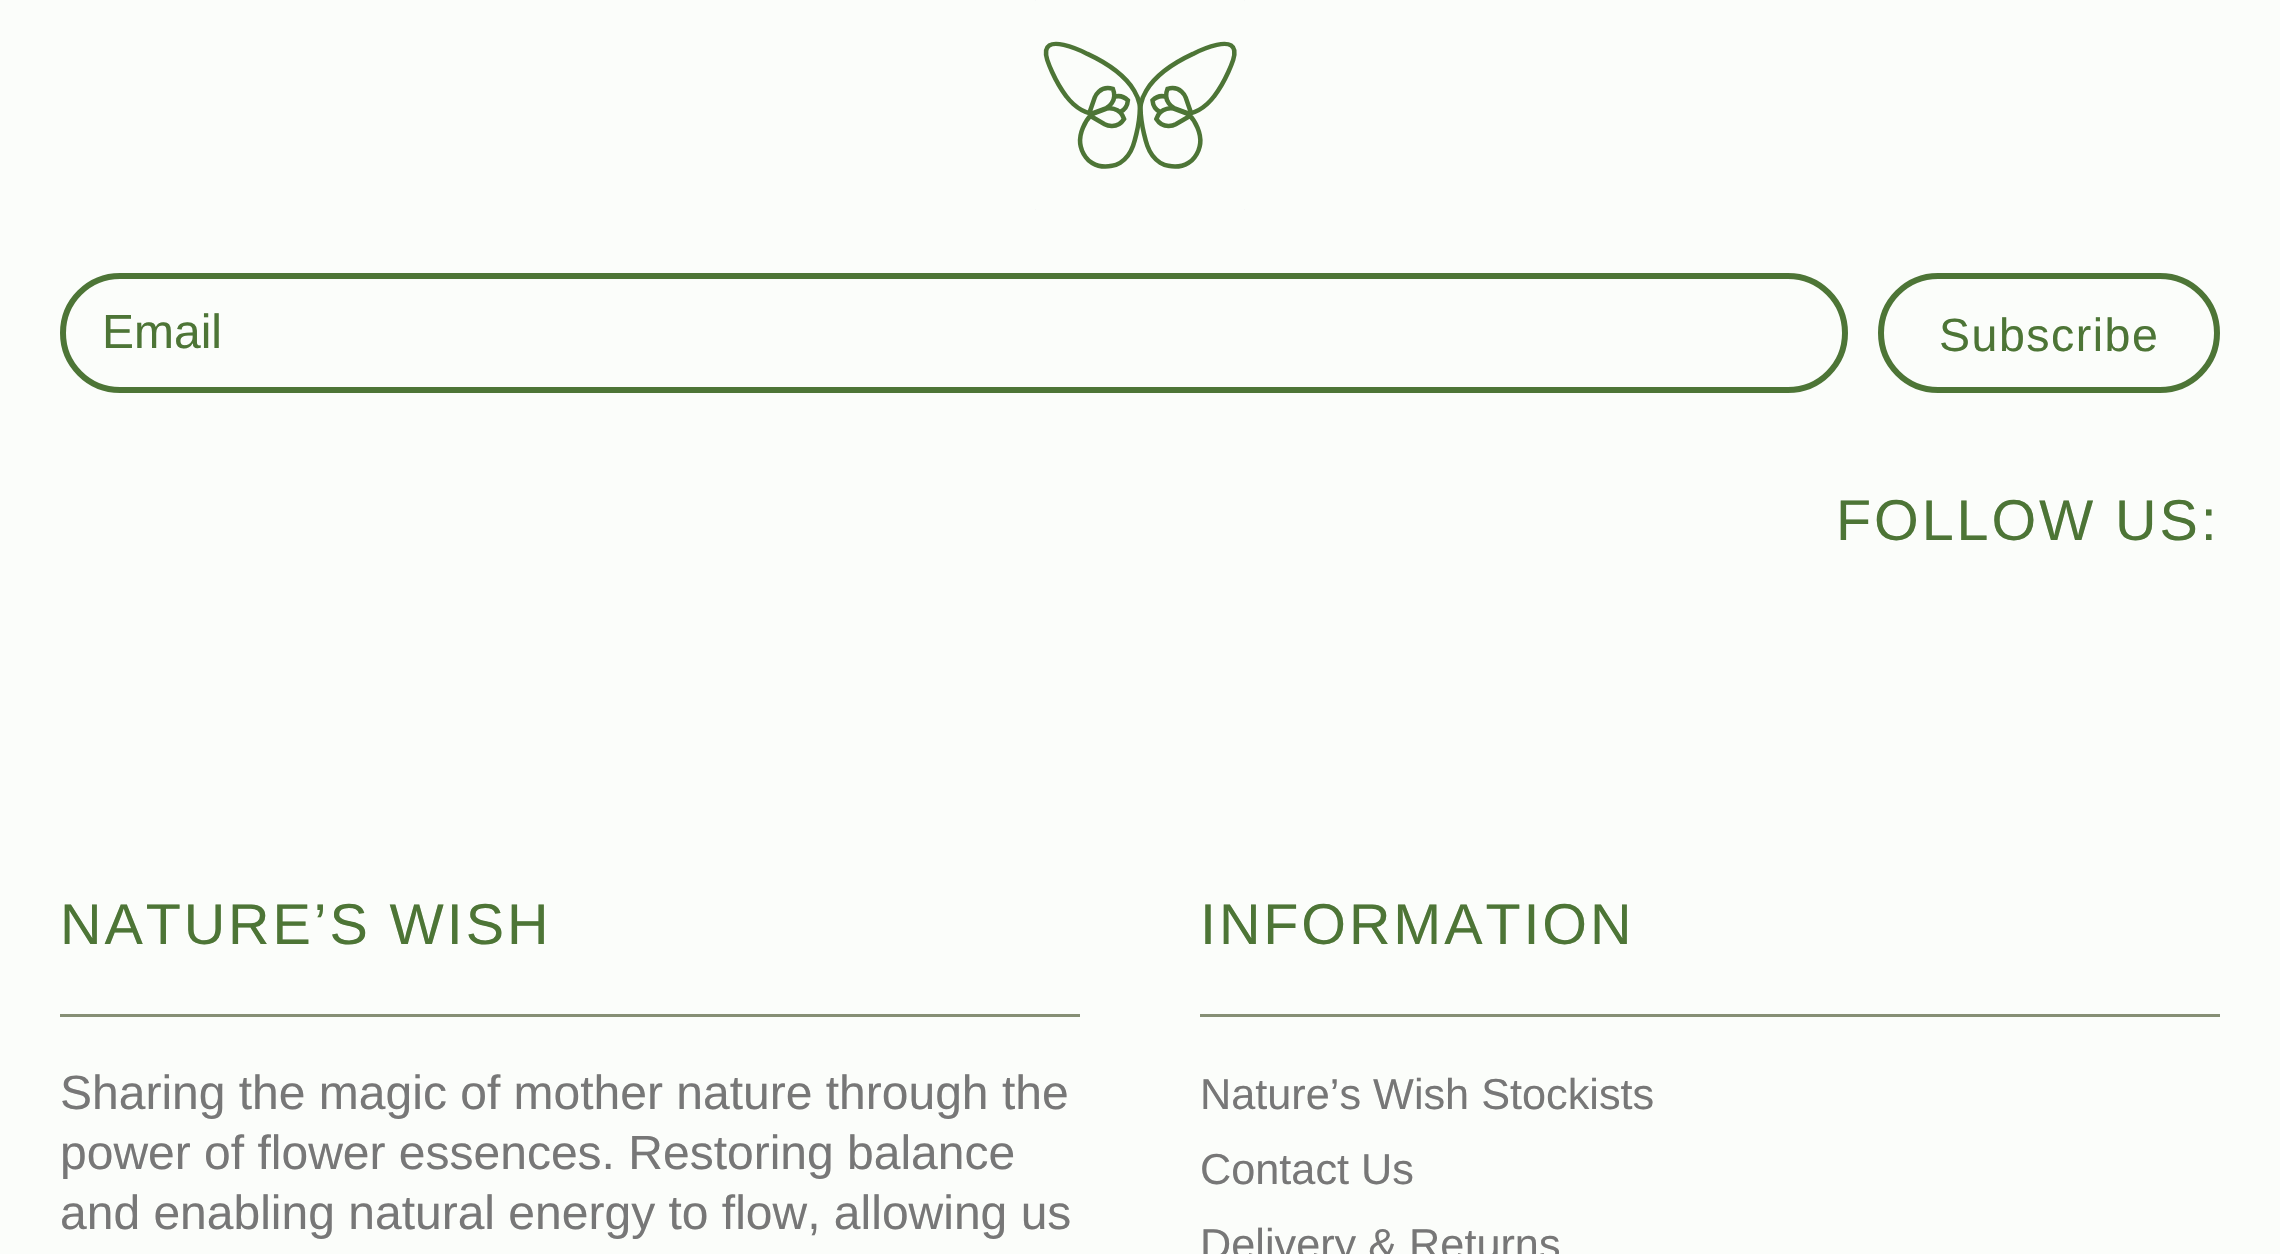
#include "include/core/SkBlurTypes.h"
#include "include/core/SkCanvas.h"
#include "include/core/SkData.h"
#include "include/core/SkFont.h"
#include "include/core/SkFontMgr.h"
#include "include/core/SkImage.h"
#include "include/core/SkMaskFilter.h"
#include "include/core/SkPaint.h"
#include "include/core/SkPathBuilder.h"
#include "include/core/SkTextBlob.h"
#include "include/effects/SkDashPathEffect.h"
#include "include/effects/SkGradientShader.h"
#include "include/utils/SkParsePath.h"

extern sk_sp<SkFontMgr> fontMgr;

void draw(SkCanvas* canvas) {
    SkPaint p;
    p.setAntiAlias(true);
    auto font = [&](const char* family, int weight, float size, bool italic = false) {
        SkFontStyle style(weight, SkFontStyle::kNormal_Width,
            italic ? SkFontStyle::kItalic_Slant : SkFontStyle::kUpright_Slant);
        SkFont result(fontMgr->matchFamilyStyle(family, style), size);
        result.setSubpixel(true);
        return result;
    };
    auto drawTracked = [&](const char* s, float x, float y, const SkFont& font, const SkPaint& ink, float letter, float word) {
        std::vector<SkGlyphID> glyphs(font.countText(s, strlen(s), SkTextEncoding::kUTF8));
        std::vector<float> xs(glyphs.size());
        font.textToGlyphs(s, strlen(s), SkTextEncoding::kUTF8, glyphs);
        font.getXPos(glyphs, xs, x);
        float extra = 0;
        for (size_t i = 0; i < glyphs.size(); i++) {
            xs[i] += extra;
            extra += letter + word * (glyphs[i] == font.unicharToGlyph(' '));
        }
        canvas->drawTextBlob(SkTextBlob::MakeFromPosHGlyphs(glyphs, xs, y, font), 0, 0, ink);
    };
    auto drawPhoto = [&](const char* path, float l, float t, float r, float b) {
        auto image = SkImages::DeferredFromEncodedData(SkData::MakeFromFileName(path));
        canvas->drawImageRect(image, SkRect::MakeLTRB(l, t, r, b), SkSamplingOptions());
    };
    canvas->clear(0xFFFBFDFA);
    drawPhoto("media/1.png", 1035, 0, 1245, 210);
    p.setStyle(SkPaint::kStroke_Style);
    p.setStrokeWidth(6);
    p.setColor(0xFF4D7536);
    canvas->drawRoundRect(SkRect::MakeLTRB(63, 276, 1845, 390), 57, 57, p);
    auto font1 = font("Liberation Sans", 400, 48);
    p.setStyle(SkPaint::kFill_Style);
    canvas->drawString("Email", 102, 348, font1, p);
    p.setStyle(SkPaint::kStroke_Style);
    canvas->drawRoundRect(SkRect::MakeLTRB(1881, 276, 2217, 390), 57, 57, p);
    auto font2 = font("Liberation Sans", 400, 46.5f);
    p.setStyle(SkPaint::kFill_Style);
    drawTracked("Subscribe", 1939, 351, font2, p, 1.5f, 0);
    auto font3 = font("Liberation Sans", 400, 57.5f);
    drawTracked("FOLLOW US:", 1836, 540, font3, p, 2.9f, 0);
    drawTracked("NATURE’S WISH", 60, 944, font3, p, 2.9f, 0);
    p.setColor(0xFF868F75);
    canvas->drawRect(SkRect::MakeLTRB(60, 1014, 1080, 1017), p);
    p.setColor(0xFF777777);
    {
        const struct { const char* s; float x, y; } items[] = {
            {"Sharing the magic of mother nature through the", 60, 1109},
            {"power of flower essences. Restoring balance", 60, 1169},
            {"and enabling natural energy to flow, allowing us", 60, 1229},
        };
        for (auto [s, x, y] : items) {
            canvas->drawString(s, x, y, font1, p);
        }
    }
    p.setColor(0xFF4D7536);
    drawTracked("INFORMATION", 1200, 944, font3, p, 2.9f, 0);
    p.setColor(0xFF868F75);
    canvas->drawRect(SkRect::MakeLTRB(1200, 1014, 2220, 1017), p);
    auto font4 = font("Liberation Sans", 400, 43.25f);
    p.setColor(0xFF777777);
    {
        const struct { const char* s; float x, y; } items[] = {
            {"Nature’s Wish Stockists", 1200, 1109},
            {"Contact Us", 1200, 1184},
            {"Delivery & Returns", 1200, 1259},
        };
        for (auto [s, x, y] : items) {
            canvas->drawString(s, x, y, font4, p);
        }
    }
}
